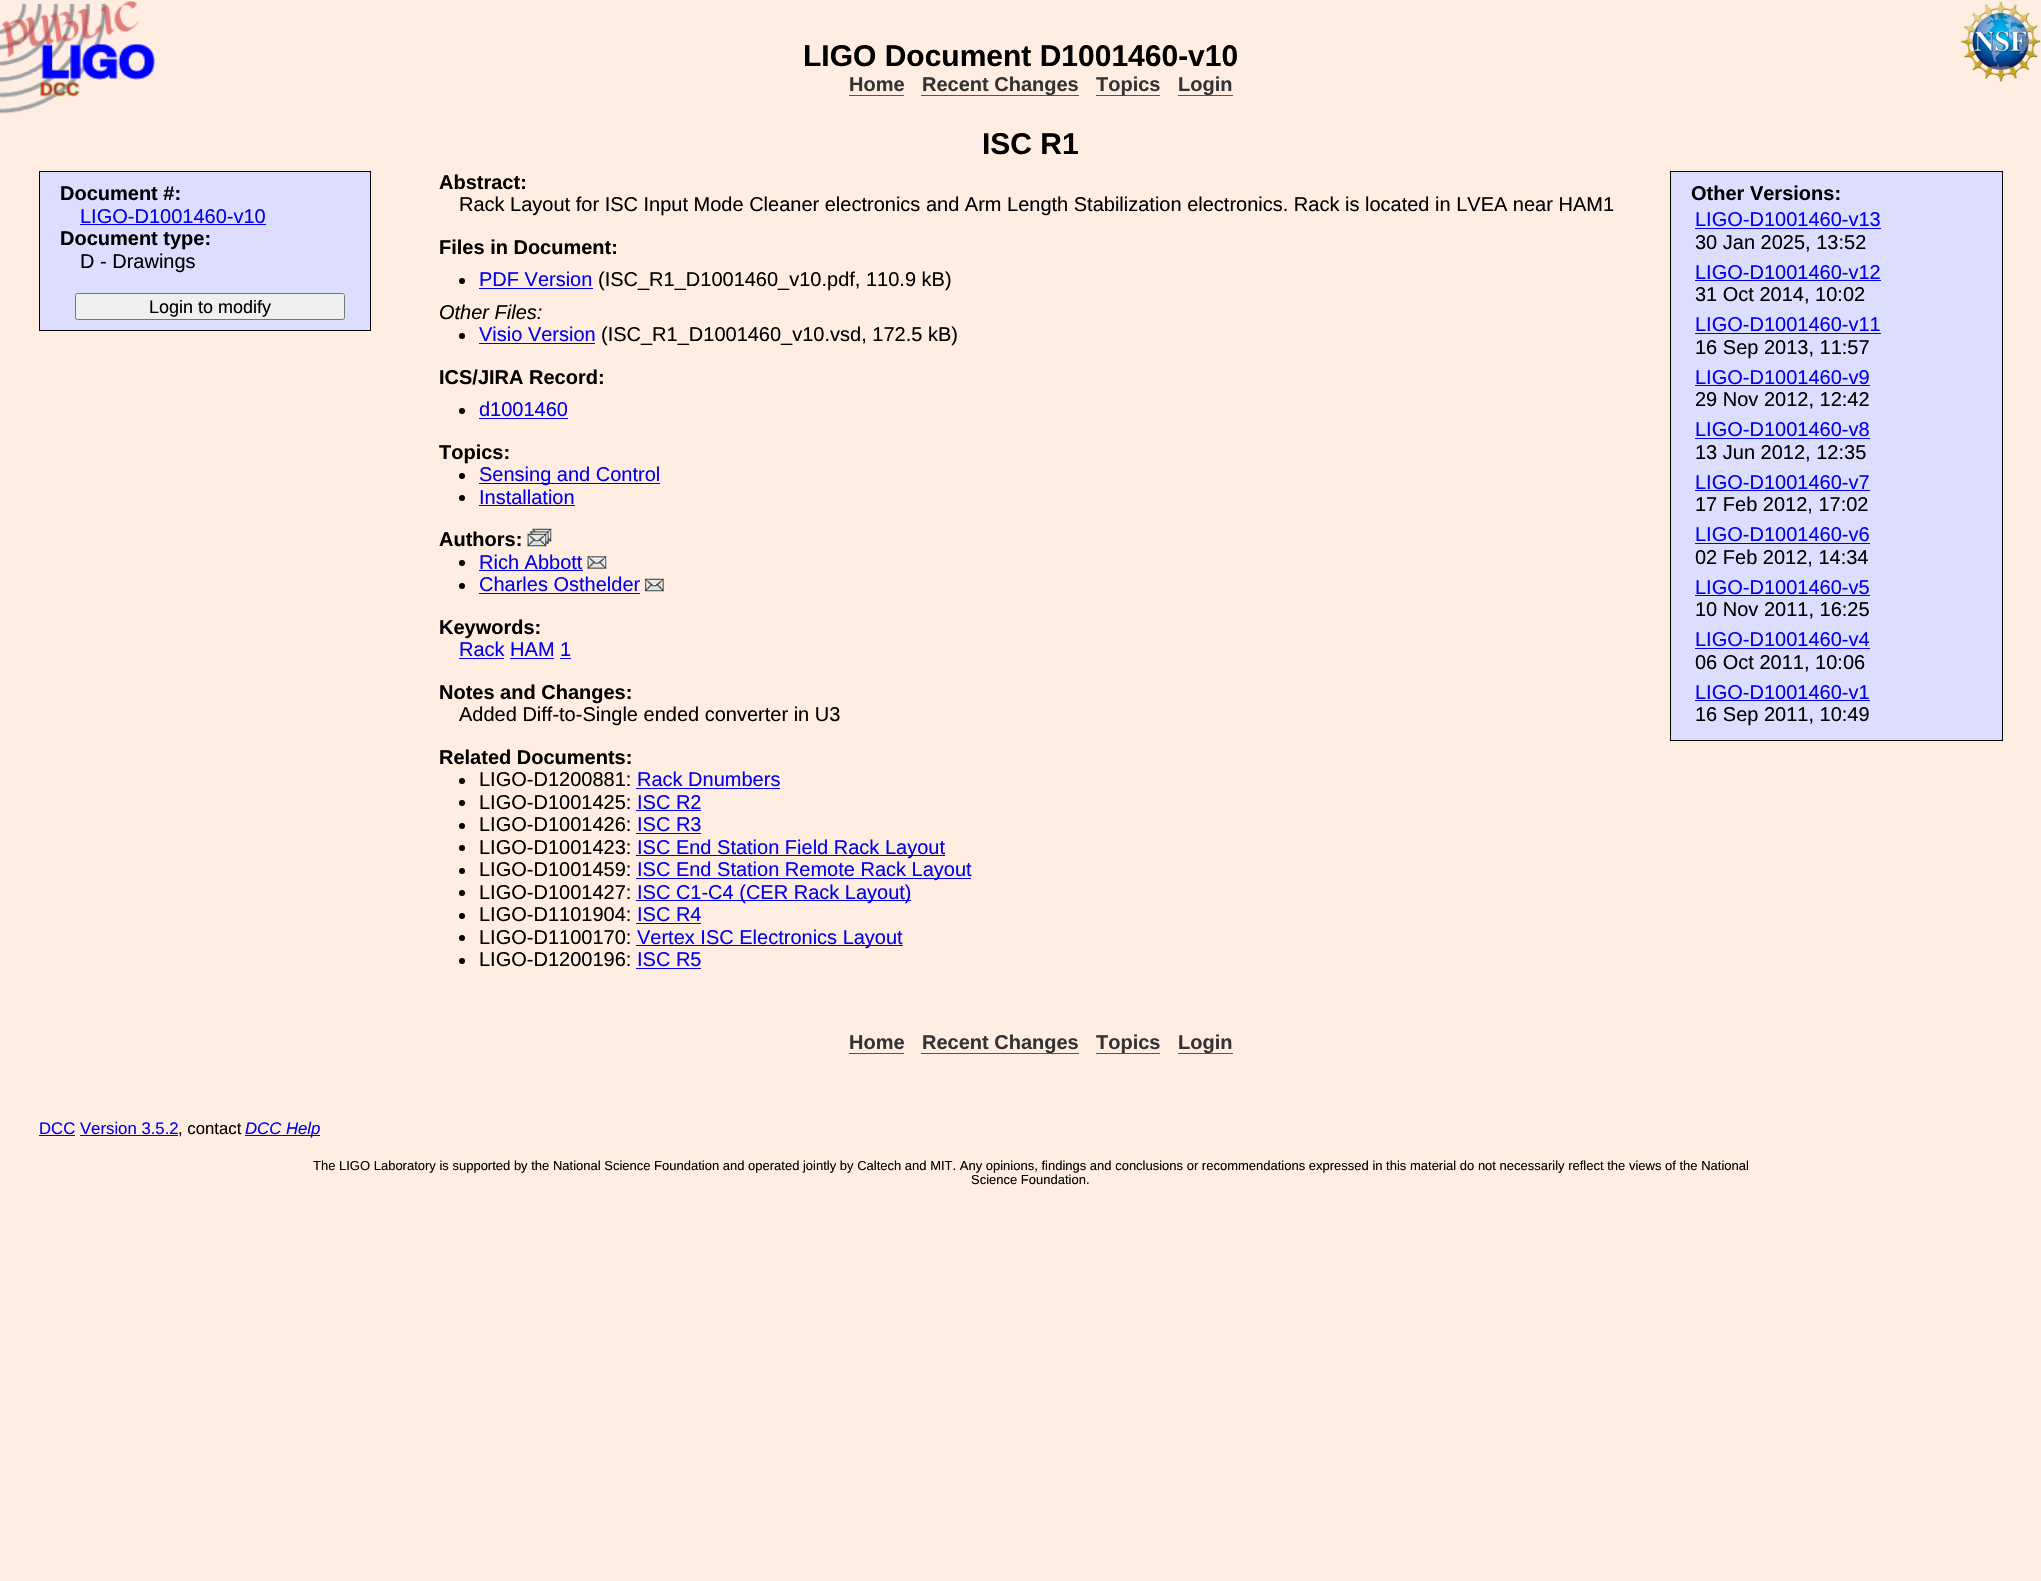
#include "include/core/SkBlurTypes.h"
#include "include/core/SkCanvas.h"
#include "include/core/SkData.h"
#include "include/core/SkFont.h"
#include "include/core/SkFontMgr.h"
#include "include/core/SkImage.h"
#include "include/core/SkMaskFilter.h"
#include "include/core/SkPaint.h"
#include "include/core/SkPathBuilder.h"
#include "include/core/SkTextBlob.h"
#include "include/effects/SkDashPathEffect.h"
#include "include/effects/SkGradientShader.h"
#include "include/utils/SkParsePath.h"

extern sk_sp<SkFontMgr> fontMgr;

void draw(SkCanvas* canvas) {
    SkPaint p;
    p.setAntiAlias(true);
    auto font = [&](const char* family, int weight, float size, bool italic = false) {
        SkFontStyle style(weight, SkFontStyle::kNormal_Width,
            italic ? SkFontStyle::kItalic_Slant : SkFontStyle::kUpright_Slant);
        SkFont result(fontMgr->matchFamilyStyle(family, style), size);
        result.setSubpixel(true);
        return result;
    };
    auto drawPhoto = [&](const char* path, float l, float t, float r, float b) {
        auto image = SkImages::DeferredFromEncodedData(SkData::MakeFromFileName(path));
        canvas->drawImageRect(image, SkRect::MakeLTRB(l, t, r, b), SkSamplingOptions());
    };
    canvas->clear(0xFFFFEDE2);
    drawPhoto("media/1.png", 0, 1, 2041, 114);
    auto font1 = font("Liberation Sans", 700, 30);
    p.setColor(0xFF000000);
    canvas->drawString("LIGO Document D1001460-v10", 803, 66, font1, p);
    auto font2 = font("Liberation Sans", 700, 20);
    p.setColor(0xFF333333);
    canvas->drawString("Home", 849, 91, font2, p);
    p.setColor(0xFF555555);
    canvas->drawRect(SkRect::MakeLTRB(849, 95, 904, 96), p);
    canvas->drawRect(SkRect::MakeLTRB(921, 95, 1079, 96), p);
    p.setColor(0xFF333333);
    canvas->drawString("Recent Changes", 922, 91, font2, p);
    p.setColor(0xFF555555);
    canvas->drawRect(SkRect::MakeLTRB(1096, 95, 1160, 96), p);
    p.setColor(0xFF333333);
    canvas->drawString("Topics", 1096, 91, font2, p);
    p.setColor(0xFF555555);
    canvas->drawRect(SkRect::MakeLTRB(1178, 95, 1233, 96), p);
    p.setColor(0xFF333333);
    canvas->drawString("Login", 1178, 91, font2, p);
    p.setColor(0xFF000000);
    canvas->drawString("ISC R1", 982, 154, font1, p);
    p.setColor(0xFFDDDDFF);
    canvas->drawRect(SkRect::MakeLTRB(39.5f, 171.5f, 370.5f, 330.5f), p);
    p.setStyle(SkPaint::kStroke_Style);
    p.setStrokeWidth(1);
    p.setColor(0xFF000000);
    canvas->drawRect(SkRect::MakeLTRB(39.5f, 171.5f, 370.5f, 330.5f), p);
    p.setStyle(SkPaint::kFill_Style);
    canvas->drawString("Document #:", 60, 200, font2, p);
    auto font3 = font("Liberation Sans", 400, 20);
    p.setColor(0xFF0000EE);
    canvas->drawString("LIGO-D1001460-v10", 80, 223, font3, p);
    canvas->drawRect(SkRect::MakeLTRB(80, 224, 266, 225), p);
    p.setColor(0xFF000000);
    canvas->drawString("Document type:", 60, 245, font2, p);
    canvas->drawString("D - Drawings", 80, 268, font3, p);
    p.setColor(0xFFEFEFEF);
    canvas->drawRoundRect(SkRect::MakeLTRB(75.5f, 293.5f, 344.5f, 319.5f), 2, 2, p);
    p.setStyle(SkPaint::kStroke_Style);
    p.setColor(0xFF767676);
    canvas->drawRoundRect(SkRect::MakeLTRB(75.5f, 293.5f, 344.5f, 319.5f), 2, 2, p);
    auto font4 = font("Liberation Sans", 400, 18);
    p.setStyle(SkPaint::kFill_Style);
    p.setColor(0xFF000000);
    canvas->drawString("Login to modify", 149, 313, font4, p);
    canvas->drawString("Abstract:", 439, 189, font2, p);
    canvas->drawString("Rack Layout for ISC Input Mode Cleaner electronics and Arm Length Stabilization electronics. Rack is located in LVEA near HAM1", 459, 211, font3, p);
    p.setColor(0xFFDDDDFF);
    canvas->drawRect(SkRect::MakeLTRB(1670.5f, 171.5f, 2002.5f, 740.5f), p);
    p.setStyle(SkPaint::kStroke_Style);
    p.setColor(0xFF000000);
    canvas->drawRect(SkRect::MakeLTRB(1670.5f, 171.5f, 2002.5f, 740.5f), p);
    p.setStyle(SkPaint::kFill_Style);
    canvas->drawString("Other Versions:", 1691, 200, font2, p);
    p.setColor(0xFF0000EE);
    canvas->drawString("LIGO-D1001460-v13", 1695, 226, font3, p);
    canvas->drawRect(SkRect::MakeLTRB(1695, 228, 1881, 229), p);
    p.setColor(0xFF000000);
    canvas->drawString("30 Jan 2025, 13:52", 1695, 249, font3, p);
    p.setColor(0xFF0000EE);
    canvas->drawString("LIGO-D1001460-v12", 1695, 279, font3, p);
    canvas->drawRect(SkRect::MakeLTRB(1695, 280, 1881, 281), p);
    p.setColor(0xFF000000);
    canvas->drawString("31 Oct 2014, 10:02", 1695, 301, font3, p);
    p.setColor(0xFF0000EE);
    canvas->drawString("LIGO-D1001460-v11", 1695, 331, font3, p);
    canvas->drawRect(SkRect::MakeLTRB(1695, 333, 1881, 334), p);
    p.setColor(0xFF000000);
    canvas->drawString("16 Sep 2013, 11:57", 1695, 354, font3, p);
    p.setColor(0xFF0000EE);
    canvas->drawString("LIGO-D1001460-v9", 1695, 384, font3, p);
    canvas->drawRect(SkRect::MakeLTRB(1695, 385, 1870, 386), p);
    p.setColor(0xFF000000);
    canvas->drawString("29 Nov 2012, 12:42", 1695, 406, font3, p);
    p.setColor(0xFF0000EE);
    canvas->drawString("LIGO-D1001460-v8", 1695, 436, font3, p);
    canvas->drawRect(SkRect::MakeLTRB(1695, 438, 1870, 439), p);
    p.setColor(0xFF000000);
    canvas->drawString("13 Jun 2012, 12:35", 1695, 459, font3, p);
    p.setColor(0xFF0000EE);
    canvas->drawString("LIGO-D1001460-v7", 1695, 489, font3, p);
    canvas->drawRect(SkRect::MakeLTRB(1695, 490, 1870, 491), p);
    p.setColor(0xFF000000);
    canvas->drawString("17 Feb 2012, 17:02", 1695, 511, font3, p);
    p.setColor(0xFF0000EE);
    canvas->drawString("LIGO-D1001460-v6", 1695, 541, font3, p);
    canvas->drawRect(SkRect::MakeLTRB(1695, 543, 1870, 544), p);
    p.setColor(0xFF000000);
    canvas->drawString("02 Feb 2012, 14:34", 1695, 564, font3, p);
    p.setColor(0xFF0000EE);
    canvas->drawString("LIGO-D1001460-v5", 1695, 594, font3, p);
    canvas->drawRect(SkRect::MakeLTRB(1695, 595, 1870, 596), p);
    p.setColor(0xFF000000);
    canvas->drawString("10 Nov 2011, 16:25", 1695, 616, font3, p);
    p.setColor(0xFF0000EE);
    canvas->drawString("LIGO-D1001460-v4", 1695, 646, font3, p);
    canvas->drawRect(SkRect::MakeLTRB(1695, 648, 1870, 649), p);
    p.setColor(0xFF000000);
    canvas->drawString("06 Oct 2011, 10:06", 1695, 669, font3, p);
    p.setColor(0xFF0000EE);
    canvas->drawString("LIGO-D1001460-v1", 1695, 699, font3, p);
    canvas->drawRect(SkRect::MakeLTRB(1695, 700, 1870, 701), p);
    p.setColor(0xFF000000);
    canvas->drawString("16 Sep 2011, 10:49", 1695, 721, font3, p);
    canvas->drawString("Files in Document:", 439, 254, font2, p);
    canvas->drawCircle(462, 281, 3, p);
    p.setColor(0xFF0000EE);
    canvas->drawString("PDF Version", 479, 286, font3, p);
    canvas->drawRect(SkRect::MakeLTRB(479, 288, 593, 289), p);
    p.setColor(0xFF000000);
    canvas->drawString("(ISC_R1_D1001460_v10.pdf, 110.9 kB)", 598, 286, font3, p);
    auto font5 = font("Liberation Sans", 400, 20, true);
    canvas->drawString("Other Files:", 439, 319, font5, p);
    canvas->drawCircle(462, 336, 3, p);
    p.setColor(0xFF0000EE);
    canvas->drawString("Visio Version", 479, 341, font3, p);
    canvas->drawRect(SkRect::MakeLTRB(479, 343, 595, 344), p);
    p.setColor(0xFF000000);
    canvas->drawString("(ISC_R1_D1001460_v10.vsd, 172.5 kB)", 601, 341, font3, p);
    canvas->drawString("ICS/JIRA Record:", 439, 384, font2, p);
    canvas->drawCircle(462, 411, 3, p);
    p.setColor(0xFF0000EE);
    canvas->drawString("d1001460", 479, 416, font3, p);
    canvas->drawRect(SkRect::MakeLTRB(479, 418, 568, 419), p);
    p.setColor(0xFF000000);
    canvas->drawString("Topics:", 439, 459, font2, p);
    canvas->drawCircle(462, 476, 3, p);
    p.setColor(0xFF0000EE);
    canvas->drawRect(SkRect::MakeLTRB(479, 483, 660, 484), p);
    canvas->drawString("Sensing and Control", 479, 481, font3, p);
    p.setColor(0xFF000000);
    canvas->drawCircle(462, 498, 3, p);
    p.setColor(0xFF0000EE);
    canvas->drawString("Installation", 479, 504, font3, p);
    canvas->drawRect(SkRect::MakeLTRB(479, 505, 575, 506), p);
    p.setColor(0xFF000000);
    canvas->drawString("Authors:", 439, 546, font2, p);
    drawPhoto("media/2.png", 527, 528, 552, 547);
    canvas->drawCircle(462, 563, 3, p);
    p.setColor(0xFF0000EE);
    canvas->drawString("Rich Abbott", 479, 569, font3, p);
    canvas->drawRect(SkRect::MakeLTRB(479, 570, 583, 571), p);
    drawPhoto("media/3.png", 587, 556, 607, 569);
    p.setColor(0xFF000000);
    canvas->drawCircle(462, 586, 3, p);
    p.setColor(0xFF0000EE);
    canvas->drawString("Charles Osthelder", 479, 591, font3, p);
    canvas->drawRect(SkRect::MakeLTRB(479, 593, 640, 594), p);
    drawPhoto("media/4.png", 645, 578, 664, 592);
    p.setColor(0xFF000000);
    canvas->drawString("Keywords:", 439, 634, font2, p);
    p.setColor(0xFF0000EE);
    canvas->drawString("Rack HAM 1", 459, 656, font3, p);
    {
        const struct { float l, t, r, b; SkColor color; } items[] = {
            {459, 658, 504, 659, 0xFF0000EE},
            {510, 658, 554, 659, 0xFF0000EE},
            {560, 658, 571, 659, 0xFF0000EE},
        };
        for (auto [l, t, r, b, color] : items) {
            p.setColor(color);
            canvas->drawRect(SkRect::MakeLTRB(l, t, r, b), p);
        }
    }
    p.setColor(0xFF000000);
    canvas->drawString("Notes and Changes:", 439, 699, font2, p);
    canvas->drawString("Added Diff-to-Single ended converter in U3", 459, 721, font3, p);
    canvas->drawString("Related Documents:", 439, 764, font2, p);
    canvas->drawCircle(462, 781, 3, p);
    canvas->drawString("LIGO-D1200881:", 479, 786, font3, p);
    p.setColor(0xFF0000EE);
    canvas->drawString("Rack Dnumbers", 637, 786, font3, p);
    canvas->drawRect(SkRect::MakeLTRB(636, 788, 780, 789), p);
    p.setColor(0xFF000000);
    canvas->drawCircle(462, 803, 3, p);
    canvas->drawString("LIGO-D1001425:", 479, 809, font3, p);
    p.setColor(0xFF0000EE);
    canvas->drawString("ISC R2", 637, 809, font3, p);
    canvas->drawRect(SkRect::MakeLTRB(636, 810, 701, 811), p);
    p.setColor(0xFF000000);
    canvas->drawCircle(462, 826, 3, p);
    canvas->drawString("LIGO-D1001426:", 479, 831, font3, p);
    p.setColor(0xFF0000EE);
    canvas->drawString("ISC R3", 637, 831, font3, p);
    canvas->drawRect(SkRect::MakeLTRB(636, 833, 701, 834), p);
    p.setColor(0xFF000000);
    canvas->drawCircle(462, 848, 3, p);
    canvas->drawString("LIGO-D1001423:", 479, 854, font3, p);
    p.setColor(0xFF0000EE);
    canvas->drawRect(SkRect::MakeLTRB(636, 855, 945, 856), p);
    canvas->drawString("ISC End Station Field Rack Layout", 637, 854, font3, p);
    p.setColor(0xFF000000);
    canvas->drawCircle(462, 871, 3, p);
    canvas->drawString("LIGO-D1001459:", 479, 876, font3, p);
    p.setColor(0xFF0000EE);
    canvas->drawRect(SkRect::MakeLTRB(636, 878, 971, 879), p);
    canvas->drawString("ISC End Station Remote Rack Layout", 637, 876, font3, p);
    p.setColor(0xFF000000);
    canvas->drawCircle(462, 893, 3, p);
    canvas->drawString("LIGO-D1001427:", 479, 899, font3, p);
    p.setColor(0xFF0000EE);
    canvas->drawRect(SkRect::MakeLTRB(636, 900, 911, 901), p);
    canvas->drawString("ISC C1-C4 (CER Rack Layout)", 637, 899, font3, p);
    p.setColor(0xFF000000);
    canvas->drawCircle(462, 916, 3, p);
    canvas->drawString("LIGO-D1101904:", 479, 921, font3, p);
    p.setColor(0xFF0000EE);
    canvas->drawString("ISC R4", 637, 921, font3, p);
    canvas->drawRect(SkRect::MakeLTRB(636, 923, 701, 924), p);
    p.setColor(0xFF000000);
    canvas->drawCircle(462, 938, 3, p);
    canvas->drawString("LIGO-D1100170:", 479, 944, font3, p);
    p.setColor(0xFF0000EE);
    canvas->drawRect(SkRect::MakeLTRB(636, 945, 903, 946), p);
    canvas->drawString("Vertex ISC Electronics Layout", 637, 944, font3, p);
    p.setColor(0xFF000000);
    canvas->drawCircle(462, 961, 3, p);
    canvas->drawString("LIGO-D1200196:", 479, 966, font3, p);
    p.setColor(0xFF0000EE);
    canvas->drawString("ISC R5", 637, 966, font3, p);
    canvas->drawRect(SkRect::MakeLTRB(636, 968, 701, 969), p);
    p.setColor(0xFF333333);
    canvas->drawString("Home", 849, 1049, font2, p);
    p.setColor(0xFF555555);
    canvas->drawRect(SkRect::MakeLTRB(849, 1053, 904, 1054), p);
    canvas->drawRect(SkRect::MakeLTRB(921, 1053, 1079, 1054), p);
    p.setColor(0xFF333333);
    canvas->drawString("Recent Changes", 922, 1049, font2, p);
    p.setColor(0xFF555555);
    canvas->drawRect(SkRect::MakeLTRB(1096, 1053, 1160, 1054), p);
    p.setColor(0xFF333333);
    canvas->drawString("Topics", 1096, 1049, font2, p);
    p.setColor(0xFF555555);
    canvas->drawRect(SkRect::MakeLTRB(1178, 1053, 1233, 1054), p);
    p.setColor(0xFF333333);
    canvas->drawString("Login", 1178, 1049, font2, p);
    auto font6 = font("Liberation Sans", 400, 16.75f);
    p.setColor(0xFF0000EE);
    canvas->drawString("DCC Version 3.5.2", 39, 1134, font6, p);
    canvas->drawRect(SkRect::MakeLTRB(39, 1135, 75, 1136), p);
    p.setColor(0xFF000000);
    canvas->drawString(", contact", 178, 1134, font6, p);
    p.setColor(0xFF0000EE);
    canvas->drawRect(SkRect::MakeLTRB(80, 1135, 178, 1136), p);
    canvas->drawRect(SkRect::MakeLTRB(245, 1135, 320, 1136), p);
    auto font7 = font("Liberation Sans", 400, 16.75f, true);
    canvas->drawString("DCC Help", 245, 1134, font7, p);
    auto font8 = font("Liberation Sans", 400, 13);
    p.setColor(0xFF000000);
    canvas->drawString("The LIGO Laboratory is supported by the National Science Foundation and operated jointly by Caltech and MIT. Any opinions, findings and conclusions or recommendations expressed in this material do not necessarily reflect the views of the National", 313, 1170, font8, p);
    canvas->drawString("Science Foundation.", 971, 1184, font8, p);
}
